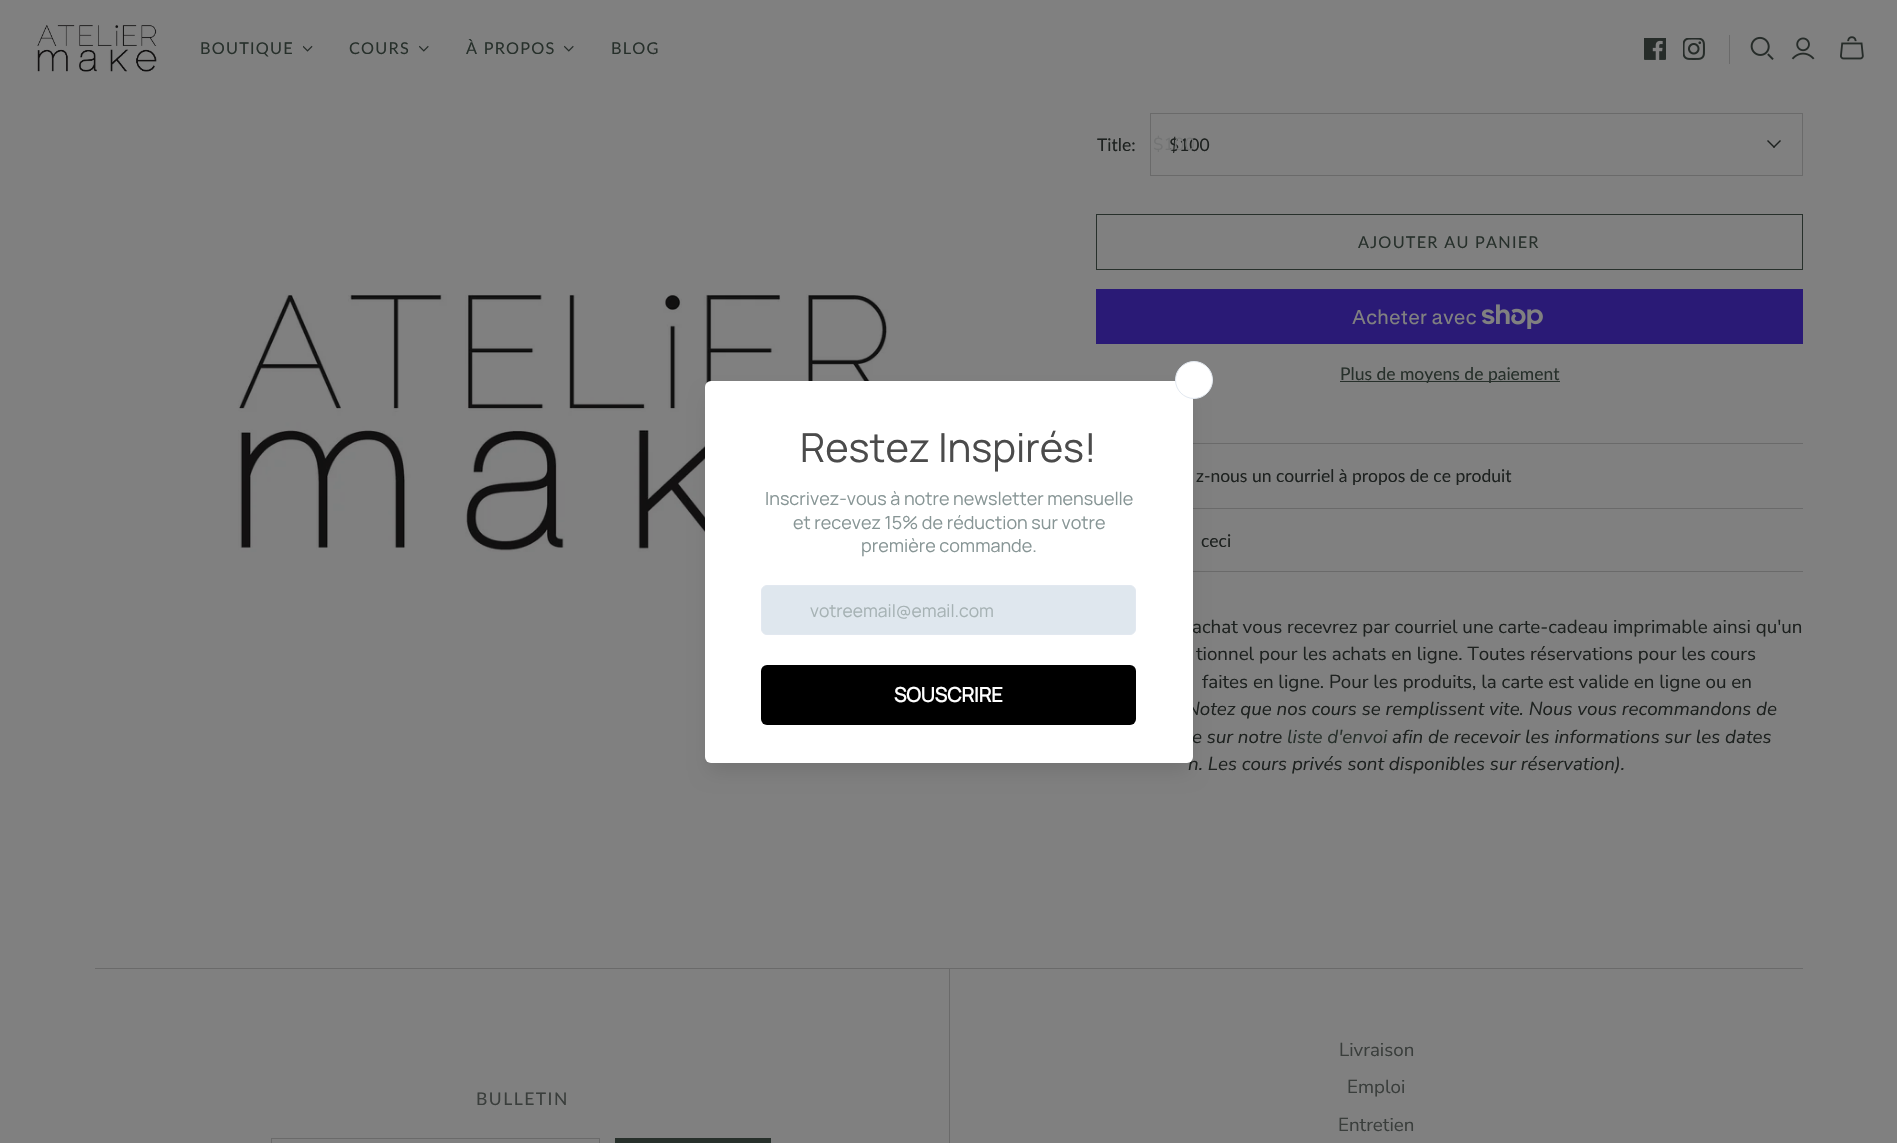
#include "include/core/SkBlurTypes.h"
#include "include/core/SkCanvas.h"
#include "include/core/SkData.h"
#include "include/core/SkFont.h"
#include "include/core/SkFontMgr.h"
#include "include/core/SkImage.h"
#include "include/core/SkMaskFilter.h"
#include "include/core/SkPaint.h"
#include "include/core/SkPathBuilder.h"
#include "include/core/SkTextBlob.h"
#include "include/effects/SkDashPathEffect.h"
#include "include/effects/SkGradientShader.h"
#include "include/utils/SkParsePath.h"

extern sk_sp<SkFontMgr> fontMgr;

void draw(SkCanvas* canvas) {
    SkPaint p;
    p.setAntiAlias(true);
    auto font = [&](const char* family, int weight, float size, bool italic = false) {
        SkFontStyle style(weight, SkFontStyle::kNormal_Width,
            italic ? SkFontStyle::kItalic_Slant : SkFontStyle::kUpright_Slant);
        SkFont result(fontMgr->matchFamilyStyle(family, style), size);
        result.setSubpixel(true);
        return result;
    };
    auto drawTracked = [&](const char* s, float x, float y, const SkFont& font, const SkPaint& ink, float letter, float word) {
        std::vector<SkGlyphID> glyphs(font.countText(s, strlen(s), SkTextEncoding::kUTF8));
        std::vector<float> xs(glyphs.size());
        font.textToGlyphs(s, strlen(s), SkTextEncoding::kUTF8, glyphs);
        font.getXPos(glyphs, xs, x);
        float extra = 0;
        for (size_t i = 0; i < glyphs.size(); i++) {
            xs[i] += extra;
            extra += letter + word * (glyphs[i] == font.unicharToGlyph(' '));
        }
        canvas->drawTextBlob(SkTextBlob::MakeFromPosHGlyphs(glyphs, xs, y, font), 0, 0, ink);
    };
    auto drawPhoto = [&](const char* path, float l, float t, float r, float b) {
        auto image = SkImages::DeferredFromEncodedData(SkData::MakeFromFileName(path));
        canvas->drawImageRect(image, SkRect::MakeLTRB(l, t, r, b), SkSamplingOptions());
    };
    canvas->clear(0xFF808080);
    drawPhoto("media/1.png", 37, 25, 157, 72);
    auto font1 = font("Lato", 400, 16.25f);
    p.setColor(0xFF27302B);
    drawTracked("BOUTIQUE", 200, 54, font1, p, 1.25f, 0);
    drawPhoto("media/2.png", 303, 45, 313, 52);
    drawTracked("COURS", 349, 54, font1, p, 1.25f, 0);
    drawPhoto("media/3.png", 419, 45, 429, 52);
    drawTracked("À PROPOS", 466, 54, font1, p, 1.25f, 0);
    drawPhoto("media/3.png", 564, 45, 574, 52);
    drawTracked("BLOG", 611, 54, font1, p, 1.25f, 0);
    drawPhoto("media/4.png", 1644, 38, 1666, 60);
    drawPhoto("media/5.png", 1683, 38, 1705, 60);
    p.setColor(0xFF6A6A6A);
    canvas->drawRect(SkRect::MakeLTRB(1729, 35, 1730, 64), p);
    drawPhoto("media/6.png", 1750, 36, 1774, 60);
    drawPhoto("media/7.png", 1791, 37, 1815, 60);
    drawPhoto("media/8.png", 1840, 36, 1864, 60);
    drawPhoto("media/9.png", 238, 294, 891, 552);
    {
        const struct { float l, t, r, b; SkColor color; } items[] = {
            {1193, 443, 1803, 444, 0xFF6A6A6A},
            {1193, 508, 1803, 509, 0xFF6A6A6A},
            {1193, 571, 1803, 572, 0xFF6A6A6A},
        };
        for (auto [l, t, r, b, color] : items) {
            p.setColor(color);
            canvas->drawRect(SkRect::MakeLTRB(l, t, r, b), p);
        }
    }
    p.setColor(0x1A000000);
    p.setMaskFilter(SkMaskFilter::MakeBlur(kNormal_SkBlurStyle, 9.5f));
    canvas->drawRoundRect(SkRect::MakeLTRB(709, 398, 1189, 771), 2.5f, 2.5f, p);
    p.setMaskFilter(nullptr);
    canvas->save();
    canvas->clipRect(SkRect::MakeLTRB(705, 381, 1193, 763));
    p.setColor(0x1F000000);
    p.setMaskFilter(SkMaskFilter::MakeBlur(kNormal_SkBlurStyle, 12.5f));
    canvas->drawRoundRect(SkRect::MakeLTRB(709, 385, 1189, 759), 2.5f, 2.5f, p);
    p.setMaskFilter(nullptr);
    canvas->restore();
    auto font2 = font("Nunito Sans", 400, 18.75f);
    p.setColor(0xFF1D211F);
    canvas->drawString("achat vous recevrez par courriel une carte-cadeau imprimable ainsi qu'un", 1192, 633, font2, p);
    auto font3 = font("Nunito Sans", 400, 18.75f, true);
    {
        const struct { const char* s; float x, y; } items[] = {
            {"Notez que nos cours se remplissent vite. Nous vous recommandons de", 1186, 715},
            {"e sur notre", 1192, 743},
            {"n. Les cours privés sont disponibles sur réservation).", 1188, 770},
        };
        for (auto [s, x, y] : items) {
            canvas->drawString(s, x, y, font3, p);
        }
    }
    p.setColor(0xFFFFFFFF);
    canvas->drawRoundRect(SkRect::MakeLTRB(705, 381, 1193, 763), 6, 6, p);
    canvas->drawCircle(1194, 380, 18.5f, p);
    p.setStyle(SkPaint::kStroke_Style);
    p.setStrokeWidth(1);
    p.setColor(0xFFE2E8F0);
    canvas->drawCircle(1194, 380, 18.5f, p);
    auto font4 = font("Manrope", 200, 40);
    p.setStyle(SkPaint::kFill_Style);
    p.setColor(0xFF4B4B4B);
    canvas->drawString("Restez Inspirés!", 800, 462, font4, p);
    auto font5 = font("Manrope", 200, 18);
    p.setColor(0xFF879595);
    {
        const struct { const char* s; float x, y; } items[] = {
            {"Inscrivez-vous à notre newsletter mensuelle", 765, 505},
            {"et recevez 15% de réduction sur votre", 793, 529},
            {"première commande.", 861, 552},
        };
        for (auto [s, x, y] : items) {
            canvas->drawString(s, x, y, font5, p);
        }
    }
    p.setColor(0xFFDFE7EE);
    canvas->drawRoundRect(SkRect::MakeLTRB(761.5f, 585.5f, 1135.5f, 634.5f), 5.5f, 5.5f, p);
    p.setStyle(SkPaint::kStroke_Style);
    p.setColor(0xFFE2E8F0);
    canvas->drawRoundRect(SkRect::MakeLTRB(761.5f, 585.5f, 1135.5f, 634.5f), 5.5f, 5.5f, p);
    auto font6 = font("Manrope", 200, 17.5f);
    p.setStyle(SkPaint::kFill_Style);
    p.setColor(0xFFA6B2B4);
    canvas->drawString("votreemail@email.com", 810, 617, font6, p);
    p.setColor(0xFF000000);
    canvas->drawRoundRect(SkRect::MakeLTRB(761, 665, 1136, 725), 6, 6, p);
    auto font7 = font("Manrope", 700, 20);
    p.setColor(0xFFFFFFFF);
    canvas->drawString("SOUSCRIRE", 894, 702, font7, p);
    auto font8 = font("Lato", 400, 17.5f);
    p.setColor(0xFF1D211F);
    canvas->drawString("Title:", 1097, 151, font8, p);
    p.setStyle(SkPaint::kStroke_Style);
    p.setColor(0xFF6A6A6A);
    canvas->drawRect(SkRect::MakeLTRB(1150.5f, 113.5f, 1802.5f, 175.5f), p);
    p.setStyle(SkPaint::kFill_Style);
    p.setColor(0xFF1D211F);
    canvas->drawString("$100", 1169, 151, font8, p);
    auto font9 = font("Nunito Sans", 400, 17.5f);
    p.setColor(0xFF737474);
    canvas->drawString("$100", 1153, 150, font9, p);
    p.setColor(0xFF1D211F);
    canvas->drawPath(SkPathBuilder().moveTo(1773, 147).lineTo(1780, 140).lineTo(1781, 141).lineTo(1774, 148).close().detach(), p);
    canvas->drawPath(SkPathBuilder().moveTo(1767, 141).lineTo(1768, 140).lineTo(1775, 147).lineTo(1774, 148).close().detach(), p);
    p.setStyle(SkPaint::kStroke_Style);
    p.setColor(0xFF27302B);
    canvas->drawRect(SkRect::MakeLTRB(1096.5f, 214.5f, 1802.5f, 269.5f), p);
    p.setStyle(SkPaint::kFill_Style);
    drawTracked("AJOUTER AU PANIER", 1358, 248, font1, p, 1.25f, 0);
    p.setColor(0xFF2A1A76);
    canvas->drawRect(SkRect::MakeLTRB(1096, 289, 1803, 344), p);
    auto font10 = font("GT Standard", 400, 20);
    p.setColor(0xFF808080);
    canvas->drawString("Acheter avec", 1352, 324, font10, p);
    drawPhoto("media/10.png", 1481, 304, 1543, 329);
    p.setColor(0xFF27302B);
    canvas->drawRect(SkRect::MakeLTRB(1340, 381, 1560, 382), p);
    canvas->drawString("Plus de moyens de paiement", 1340, 380, font8, p);
    p.setColor(0xFF1D211F);
    canvas->drawString("z-nous un courriel à propos de ce produit", 1196, 482, font8, p);
    canvas->drawString("ceci", 1201, 547, font8, p);
    canvas->drawString("tionnel pour les achats en ligne. Toutes réservations pour les cours", 1196, 660, font2, p);
    canvas->drawString("faites en ligne. Pour les produits, la carte est valide en ligne ou en", 1202, 688, font2, p);
    p.setColor(0xFF27302B);
    canvas->drawString("liste d'envoi", 1287, 743, font3, p);
    p.setColor(0xFF1D211F);
    canvas->drawString("afin de recevoir les informations sur les dates", 1392, 743, font3, p);
    p.setColor(0xFF6A6A6A);
    canvas->drawRect(SkRect::MakeLTRB(95, 968, 1803, 969), p);
    p.setColor(0xFF3A3E3C);
    drawTracked("BULLETIN", 476, 1105, font8, p, 1.5f, 0);
    p.setStyle(SkPaint::kStroke_Style);
    p.setColor(0xFF6A6A6A);
    canvas->drawRect(SkRect::MakeLTRB(271.5f, 1138.5f, 599.5f, 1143.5f), p);
    p.setStyle(SkPaint::kFill_Style);
    p.setColor(0xFF27302B);
    canvas->drawRect(SkRect::MakeLTRB(615, 1138, 771, 1143), p);
    p.setColor(0xFF6A6A6A);
    canvas->drawRect(SkRect::MakeLTRB(949, 969, 950, 1143), p);
    p.setColor(0xFF3A3E3C);
    {
        const struct { const char* s; float x, y; } items[] = {
            {"Livraison", 1339, 1056},
            {"Emploi", 1347, 1093},
            {"Entretien", 1338, 1131},
        };
        for (auto [s, x, y] : items) {
            canvas->drawString(s, x, y, font2, p);
        }
    }
}
